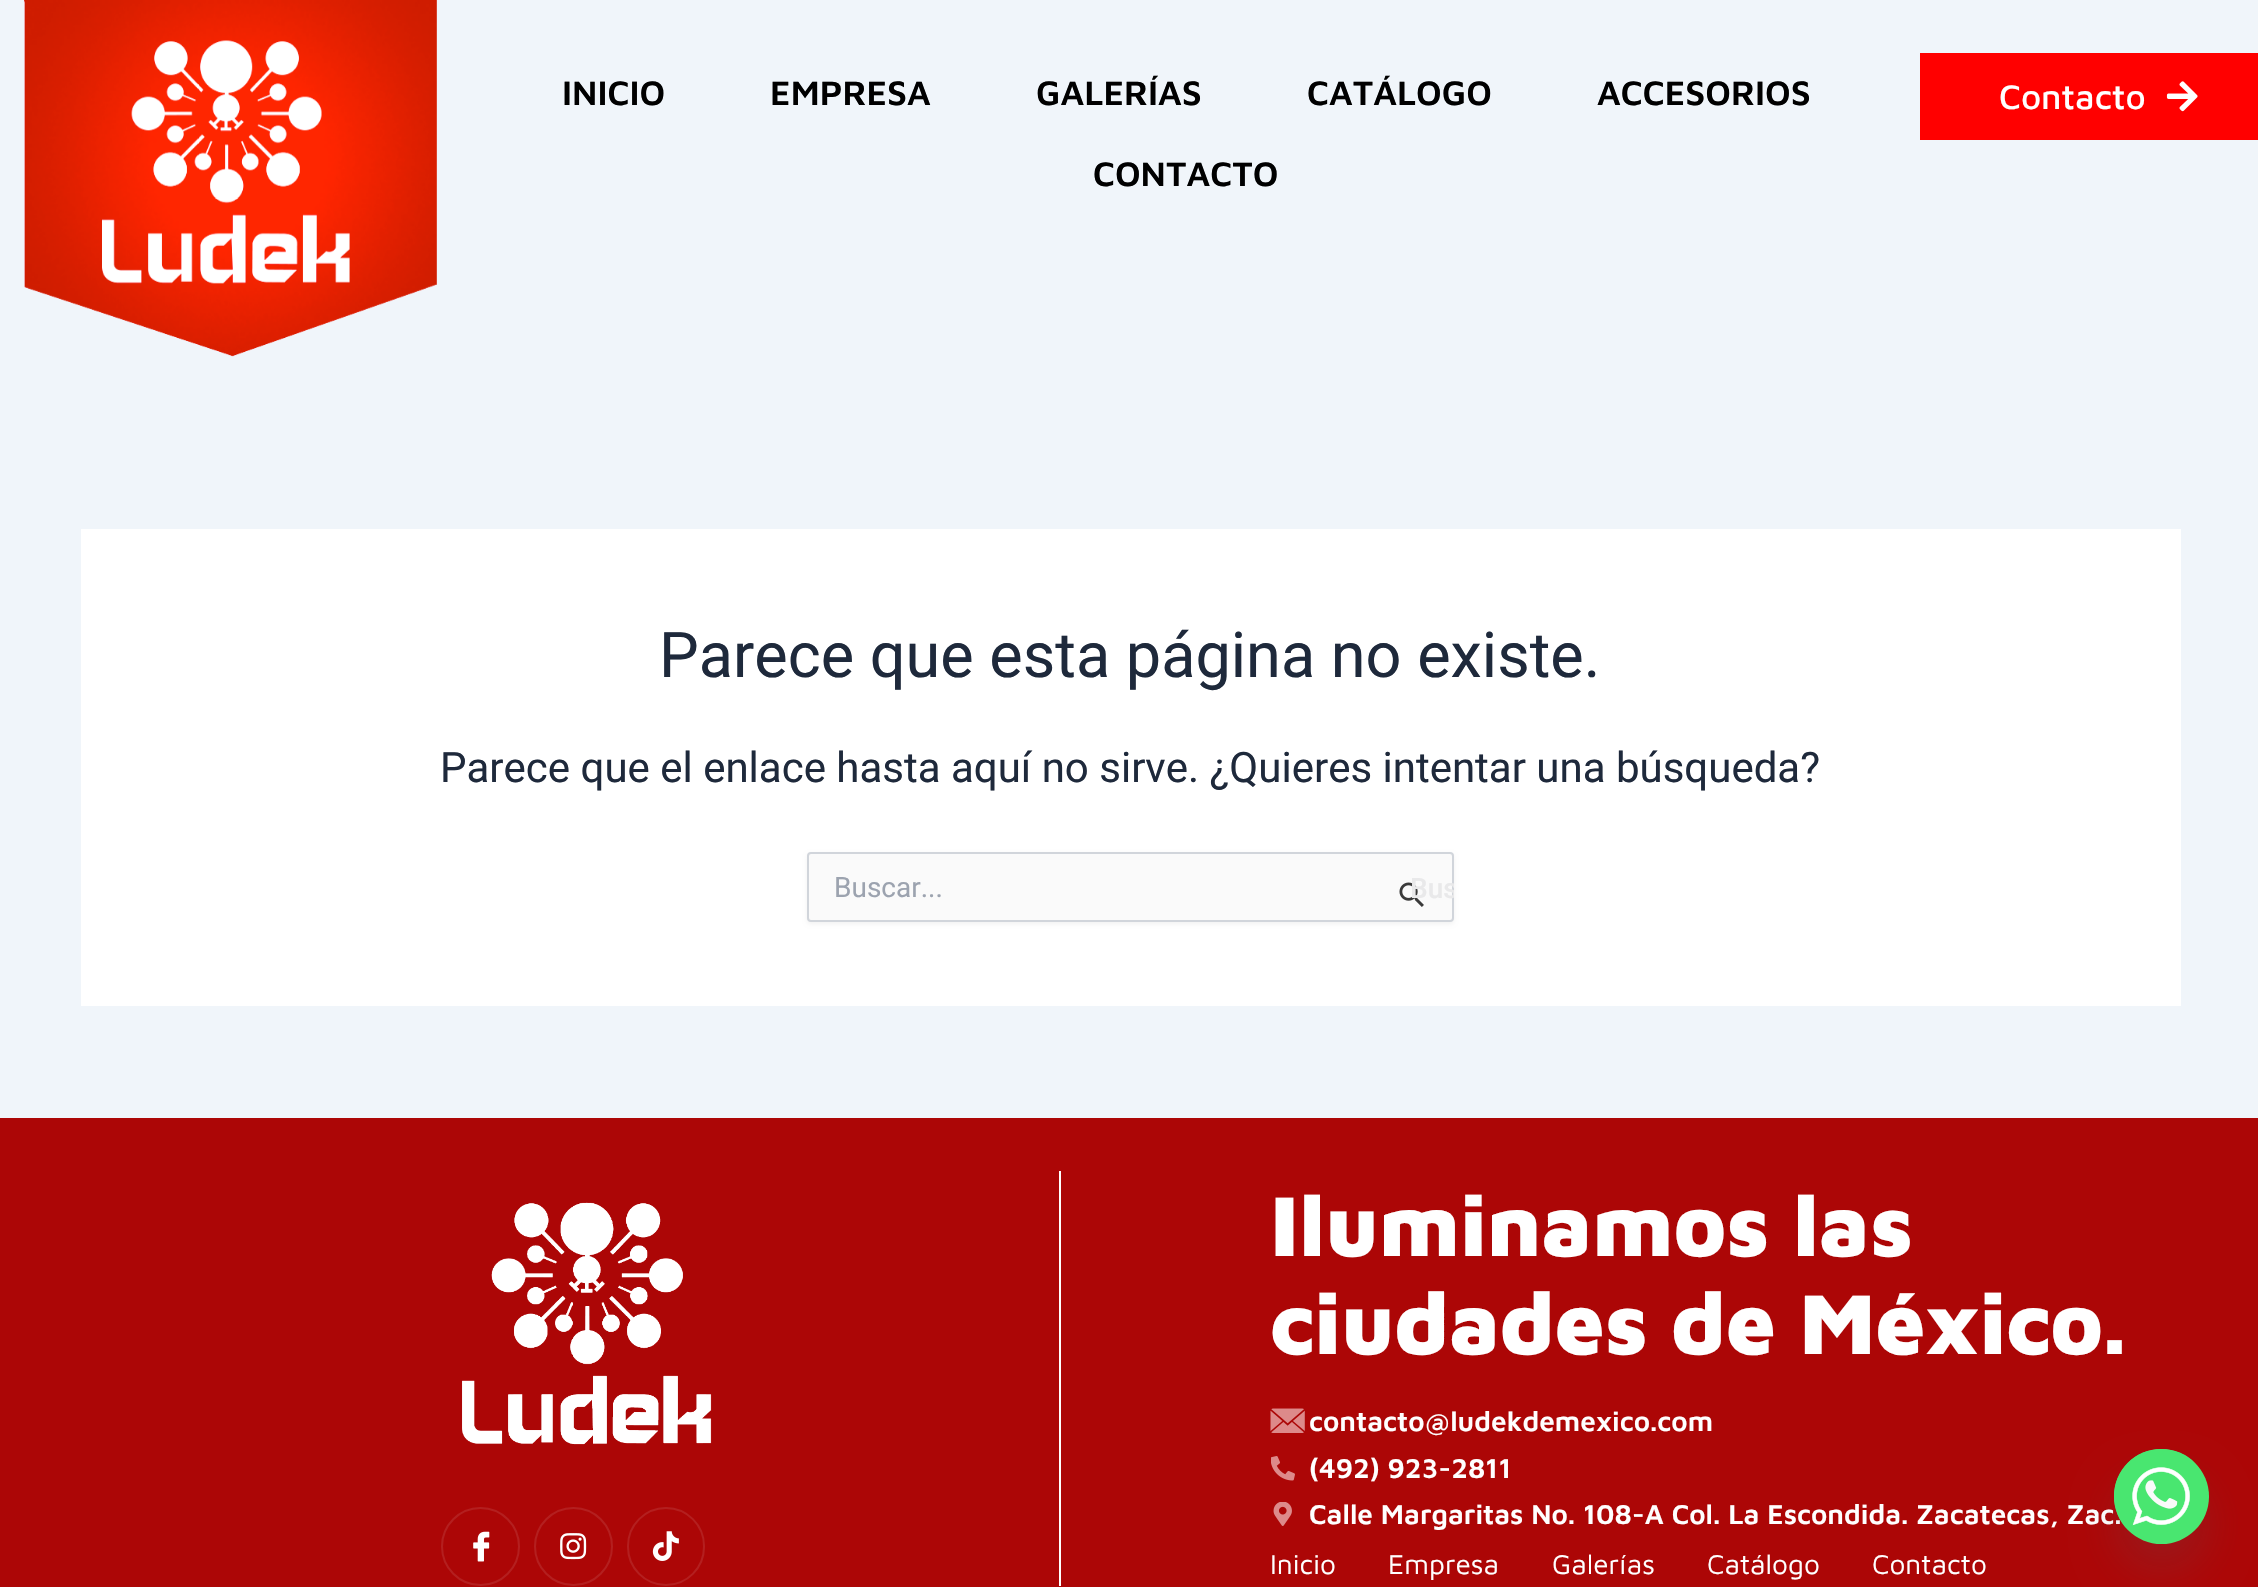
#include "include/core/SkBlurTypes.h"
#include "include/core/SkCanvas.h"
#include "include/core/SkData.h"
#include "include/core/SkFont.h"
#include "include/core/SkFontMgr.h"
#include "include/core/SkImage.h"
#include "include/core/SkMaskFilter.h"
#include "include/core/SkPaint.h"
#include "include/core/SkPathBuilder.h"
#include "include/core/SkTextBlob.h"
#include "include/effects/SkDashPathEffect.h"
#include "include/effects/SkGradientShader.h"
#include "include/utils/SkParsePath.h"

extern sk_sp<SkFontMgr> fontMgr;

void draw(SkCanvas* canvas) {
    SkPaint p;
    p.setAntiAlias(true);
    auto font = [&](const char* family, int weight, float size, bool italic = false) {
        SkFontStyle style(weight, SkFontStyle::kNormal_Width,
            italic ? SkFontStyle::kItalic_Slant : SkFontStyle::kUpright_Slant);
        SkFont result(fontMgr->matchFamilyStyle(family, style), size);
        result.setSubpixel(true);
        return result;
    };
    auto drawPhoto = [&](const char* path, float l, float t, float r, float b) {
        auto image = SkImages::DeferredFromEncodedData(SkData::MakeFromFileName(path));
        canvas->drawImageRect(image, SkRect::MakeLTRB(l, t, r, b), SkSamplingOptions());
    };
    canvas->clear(0xFFF0F5FA);
    drawPhoto("media/1.png", 24, 0, 437, 357);
    auto font1 = font("Maven Pro", 600, 35);
    p.setColor(0xFF000000);
    {
        const struct { const char* s; float x, y; } items[] = {
            {"INICIO", 562, 105},
            {"EMPRESA", 770, 105},
            {"GALERÍAS", 1036, 105},
            {"CATÁLOGO", 1307, 105},
            {"ACCESORIOS", 1597, 105},
            {"CONTACTO", 1093, 186},
        };
        for (auto [s, x, y] : items) {
            canvas->drawString(s, x, y, font1, p);
        }
    }
    p.setColor(0xFFFF0000);
    canvas->drawRect(SkRect::MakeLTRB(1920, 53, 2258, 140), p);
    auto font2 = font("Maven Pro", 500, 35);
    p.setColor(0xFFFFFFFF);
    canvas->drawString("Contacto", 1999, 109, font2, p);
    drawPhoto("media/2.png", 2166, 81, 2198, 112);
    canvas->drawRect(SkRect::MakeLTRB(81, 529, 2181, 1006), p);
    auto font3 = font("Roboto", 400, 63);
    p.setColor(0xFF1E293B);
    canvas->drawString("Parece que esta página no existe.", 659, 677, font3, p);
    auto font4 = font("Roboto", 400, 42);
    canvas->drawString("Parece que el enlace hasta aquí no sirve. ¿Quieres intentar una búsqueda?", 440, 782, font4, p);
    p.setColor(0x0D000000);
    p.setMaskFilter(SkMaskFilter::MakeBlur(kNormal_SkBlurStyle, 2));
    canvas->drawRoundRect(SkRect::MakeLTRB(807, 854, 1454, 924), 4, 4, p);
    p.setMaskFilter(nullptr);
    p.setColor(0xFFFAFAFA);
    canvas->drawRoundRect(SkRect::MakeLTRB(808, 853, 1453, 921), 3, 3, p);
    p.setStyle(SkPaint::kStroke_Style);
    p.setStrokeWidth(2);
    p.setColor(0xFFD1D5DB);
    canvas->drawRoundRect(SkRect::MakeLTRB(808, 853, 1453, 921), 3, 3, p);
    auto font5 = font("Roboto", 400, 28);
    p.setStyle(SkPaint::kFill_Style);
    p.setColor(0xFF9CA3AF);
    canvas->drawString("Buscar...", 834, 897, font5, p);
    drawPhoto("media/3.png", 1399, 882, 1424, 907);
    canvas->save();
    canvas->clipPath(SkPathBuilder().moveTo(1380, 852).lineTo(1450, 852).cubicTo(1452, 852, 1454, 854, 1454, 856).lineTo(1454, 922).cubicTo(1454, 924, 1452, 926, 1450, 926).lineTo(1380, 926).cubicTo(1378, 926, 1376, 924, 1376, 922).lineTo(1376, 856).cubicTo(1376, 854, 1378, 852, 1380, 852).close().detach(), true);
    auto font6 = font("Roboto", 500, 28);
    p.setColor(0xFFE9E9EA);
    canvas->drawString("Bus", 1410, 898, font6, p);
    canvas->restore();
    p.setColor(0xFFAC0606);
    canvas->drawRect(SkRect::MakeLTRB(0, 1118, 2258, 1587), p);
    p.setColor(0xFFFFFFFF);
    canvas->drawRect(SkRect::MakeLTRB(1059, 1171, 1061, 1586), p);
    drawPhoto("media/4.png", 462, 1202, 712, 1445);
    p.setStyle(SkPaint::kStroke_Style);
    p.setColor(0xFFB41F1F);
    canvas->drawCircle(480.5f, 1546.5f, 38.5f, p);
    drawPhoto("media/5.png", 473, 1531, 490, 1562);
    canvas->drawCircle(573.5f, 1546.5f, 38.5f, p);
    drawPhoto("media/6.png", 560, 1533, 587, 1560);
    canvas->drawRoundRect(SkRect::MakeLTRB(628, 1508, 704, 1585), 38, 38, p);
    drawPhoto("media/7.png", 652, 1531, 679, 1561);
    auto font7 = font("Maven Pro", 900, 87.5f);
    p.setStyle(SkPaint::kFill_Style);
    p.setColor(0xFFFFFFFF);
    canvas->drawString("Iluminamos las", 1270, 1256, font7, p);
    canvas->drawString("ciudades de México.", 1270, 1354, font7, p);
    drawPhoto("media/8.png", 1270, 1408, 1305, 1433);
    auto font8 = font("Maven Pro", 600, 28);
    canvas->drawString("contacto@ludekdemexico.com", 1309, 1431, font8, p);
    drawPhoto("media/9.png", 1271, 1456, 1295, 1481);
    canvas->drawString("(492) 923-2811", 1309, 1478, font8, p);
    drawPhoto("media/10.png", 1273, 1502, 1292, 1526);
    canvas->drawString("Calle Margaritas No. 108-A Col. La Escondida. Zacatecas, Zac.", 1309, 1524, font8, p);
    auto font9 = font("Maven Pro", 400, 28);
    {
        const struct { const char* s; float x, y; } items[] = {
            {"Inicio", 1270, 1574},
            {"Empresa", 1388, 1574},
            {"Galerías", 1552, 1574},
            {"Catálogo", 1707, 1574},
            {"Contacto", 1872, 1574},
        };
        for (auto [s, x, y] : items) {
            canvas->drawString(s, x, y, font9, p);
        }
    }
    p.setColor(0x2949687E);
    p.setMaskFilter(SkMaskFilter::MakeBlur(kNormal_SkBlurStyle, 21));
    canvas->drawRoundRect(SkRect::MakeLTRB(2114, 1477, 2209, 1572), 47.5f, 47.5f, p);
    p.setMaskFilter(nullptr);
    p.setColor(0xFF49E670);
    canvas->drawCircle(2161.5f, 1496.5f, 47.5f, p);
    drawPhoto("media/11.png", 2114, 1449, 2202, 1537);
}
